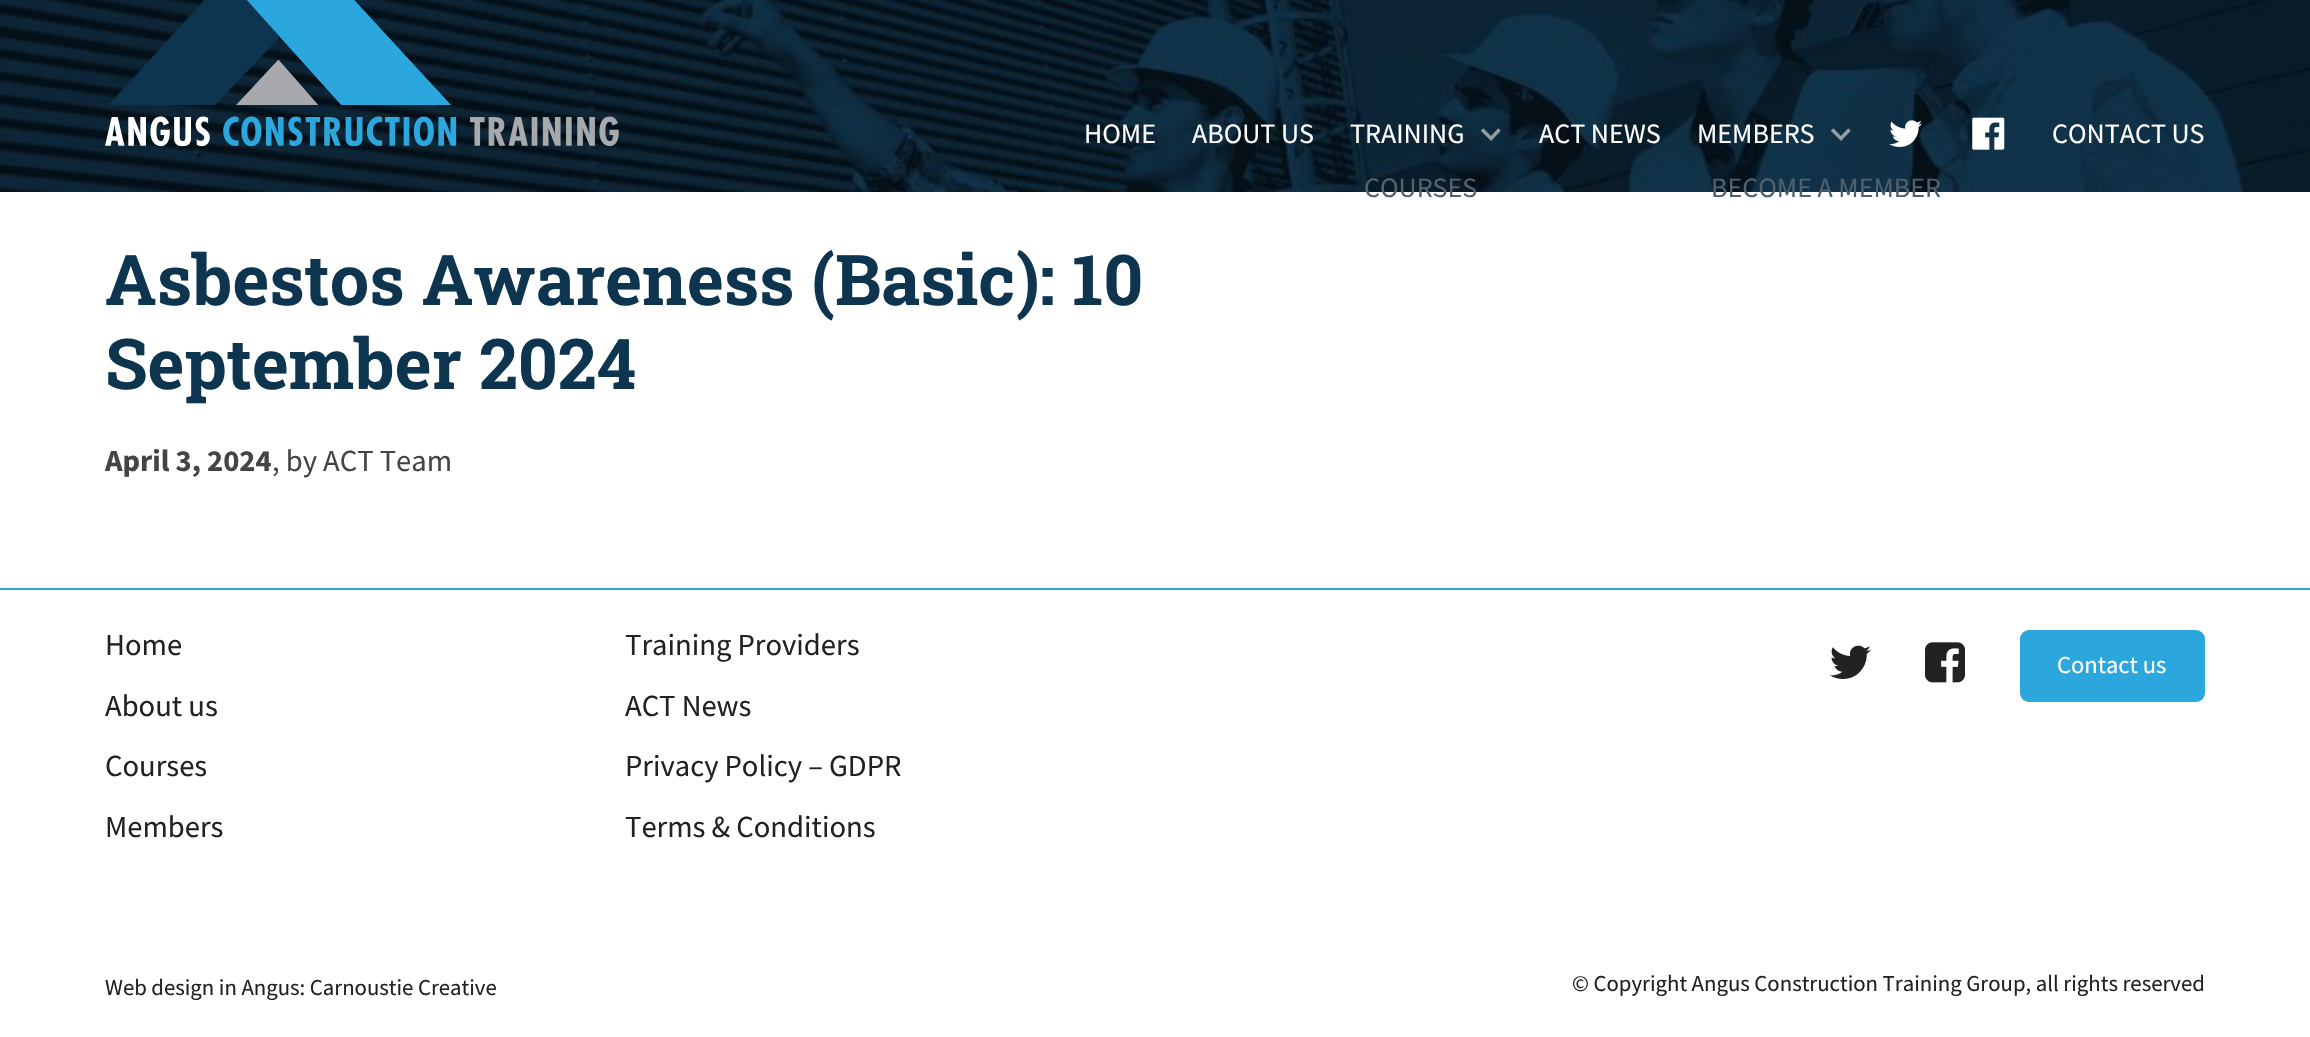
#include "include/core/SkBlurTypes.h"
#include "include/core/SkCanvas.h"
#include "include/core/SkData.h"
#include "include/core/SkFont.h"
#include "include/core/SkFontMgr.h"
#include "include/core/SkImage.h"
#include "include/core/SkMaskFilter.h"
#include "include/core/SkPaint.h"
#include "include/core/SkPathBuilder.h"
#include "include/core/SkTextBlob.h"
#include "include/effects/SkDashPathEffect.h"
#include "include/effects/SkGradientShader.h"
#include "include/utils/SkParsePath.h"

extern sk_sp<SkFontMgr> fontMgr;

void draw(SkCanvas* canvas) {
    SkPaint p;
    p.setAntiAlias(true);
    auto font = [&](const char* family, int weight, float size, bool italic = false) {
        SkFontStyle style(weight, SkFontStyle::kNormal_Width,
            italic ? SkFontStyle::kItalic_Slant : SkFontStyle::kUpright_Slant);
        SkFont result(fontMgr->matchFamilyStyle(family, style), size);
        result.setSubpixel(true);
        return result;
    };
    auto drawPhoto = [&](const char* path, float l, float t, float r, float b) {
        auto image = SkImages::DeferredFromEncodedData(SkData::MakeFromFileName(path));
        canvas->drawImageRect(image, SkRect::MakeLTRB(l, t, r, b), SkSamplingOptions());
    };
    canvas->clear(0xFFFFFFFF);
    drawPhoto("media/1.png", 0, 0, 2310, 192);
    drawPhoto("media/2.png", 105, 0, 619, 147);
    auto font1 = font("Source Sans Pro", 400, 28);
    p.setColor(0xFFFFFFFF);
    {
        const struct { const char* s; float x, y; } items[] = {
            {"HOME", 1084, 143},
            {"ABOUT US", 1192, 143},
            {"TRAINING", 1350, 143},
        };
        for (auto [s, x, y] : items) {
            canvas->drawString(s, x, y, font1, p);
        }
    }
    p.setStyle(SkPaint::kStroke_Style);
    p.setStrokeWidth(3.5f);
    p.setColor(0xB3CCCCCC);
    canvas->drawPath(SkPathBuilder().moveTo(1482, 129.5f).lineTo(1491, 138.5f).lineTo(1499.5f, 129.5f).detach(), p);
    p.setStyle(SkPaint::kFill_Style);
    p.setColor(0xFF55626A);
    canvas->drawString("COURSES", 1364, 197, font1, p);
    p.setColor(0xFFFFFFFF);
    canvas->drawString("ACT NEWS", 1539, 143, font1, p);
    drawPhoto("media/3.png", 1889, 120, 1922, 147);
    drawPhoto("media/4.png", 1972, 117, 2005, 150);
    canvas->drawString("MEMBERS", 1697, 143, font1, p);
    p.setStyle(SkPaint::kStroke_Style);
    p.setColor(0xB3CCCCCC);
    canvas->drawPath(SkPathBuilder().moveTo(1832, 129.5f).lineTo(1841, 138.5f).lineTo(1849.5f, 129.5f).detach(), p);
    p.setStyle(SkPaint::kFill_Style);
    p.setColor(0xFF4D616E);
    canvas->drawString("BECOME A MEMBER", 1711, 197, font1, p);
    p.setColor(0xFFFFFFFF);
    canvas->drawString("CONTACT US", 2052, 143, font1, p);
    auto font2 = font("Roboto Slab", 700, 70);
    p.setColor(0xFF0E3550);
    canvas->drawString("Asbestos Awareness (Basic): 10", 105, 305, font2, p);
    canvas->drawString("September 2024", 105, 389, font2, p);
    auto font3 = font("Source Sans Pro", 700, 30.6f);
    p.setColor(0xFF444444);
    canvas->drawString("April 3, 2024", 105, 471, font3, p);
    auto font4 = font("Source Sans Pro", 400, 30.6f);
    canvas->drawString(", by ACT Team", 272, 471, font4, p);
    p.setColor(0xFF2BA7DE);
    canvas->drawRect(SkRect::MakeLTRB(0, 588, 2310, 590), p);
    p.setColor(0xFF222222);
    {
        const struct { const char* s; float x, y; } items[] = {
            {"Home", 105, 655},
            {"Training Providers", 625, 655},
            {"About us", 105, 716},
            {"ACT News", 625, 716},
            {"Courses", 105, 776},
            {"Privacy Policy – GDPR", 625, 776},
            {"Members", 105, 837},
            {"Terms & Conditions", 625, 837},
        };
        for (auto [s, x, y] : items) {
            canvas->drawString(s, x, y, font4, p);
        }
    }
    drawPhoto("media/5.png", 1830, 645, 1871, 679);
    drawPhoto("media/6.png", 1925, 642, 1965, 683);
    p.setColor(0xFF2BA7DE);
    canvas->drawRoundRect(SkRect::MakeLTRB(2020, 630, 2205, 702), 9, 9, p);
    auto font5 = font("Source Sans Pro", 400, 24.5f);
    p.setColor(0xFFFFFFFF);
    canvas->drawString("Contact us", 2057, 673, font5, p);
    auto font6 = font("Source Sans Pro", 400, 22.75f);
    p.setColor(0xFF222222);
    canvas->drawString("Web design in Angus: Carnoustie Creative", 105, 995, font6, p);
    canvas->drawString("© Copyright Angus Construction Training Group, all rights reserved", 1572, 991, font6, p);
}
